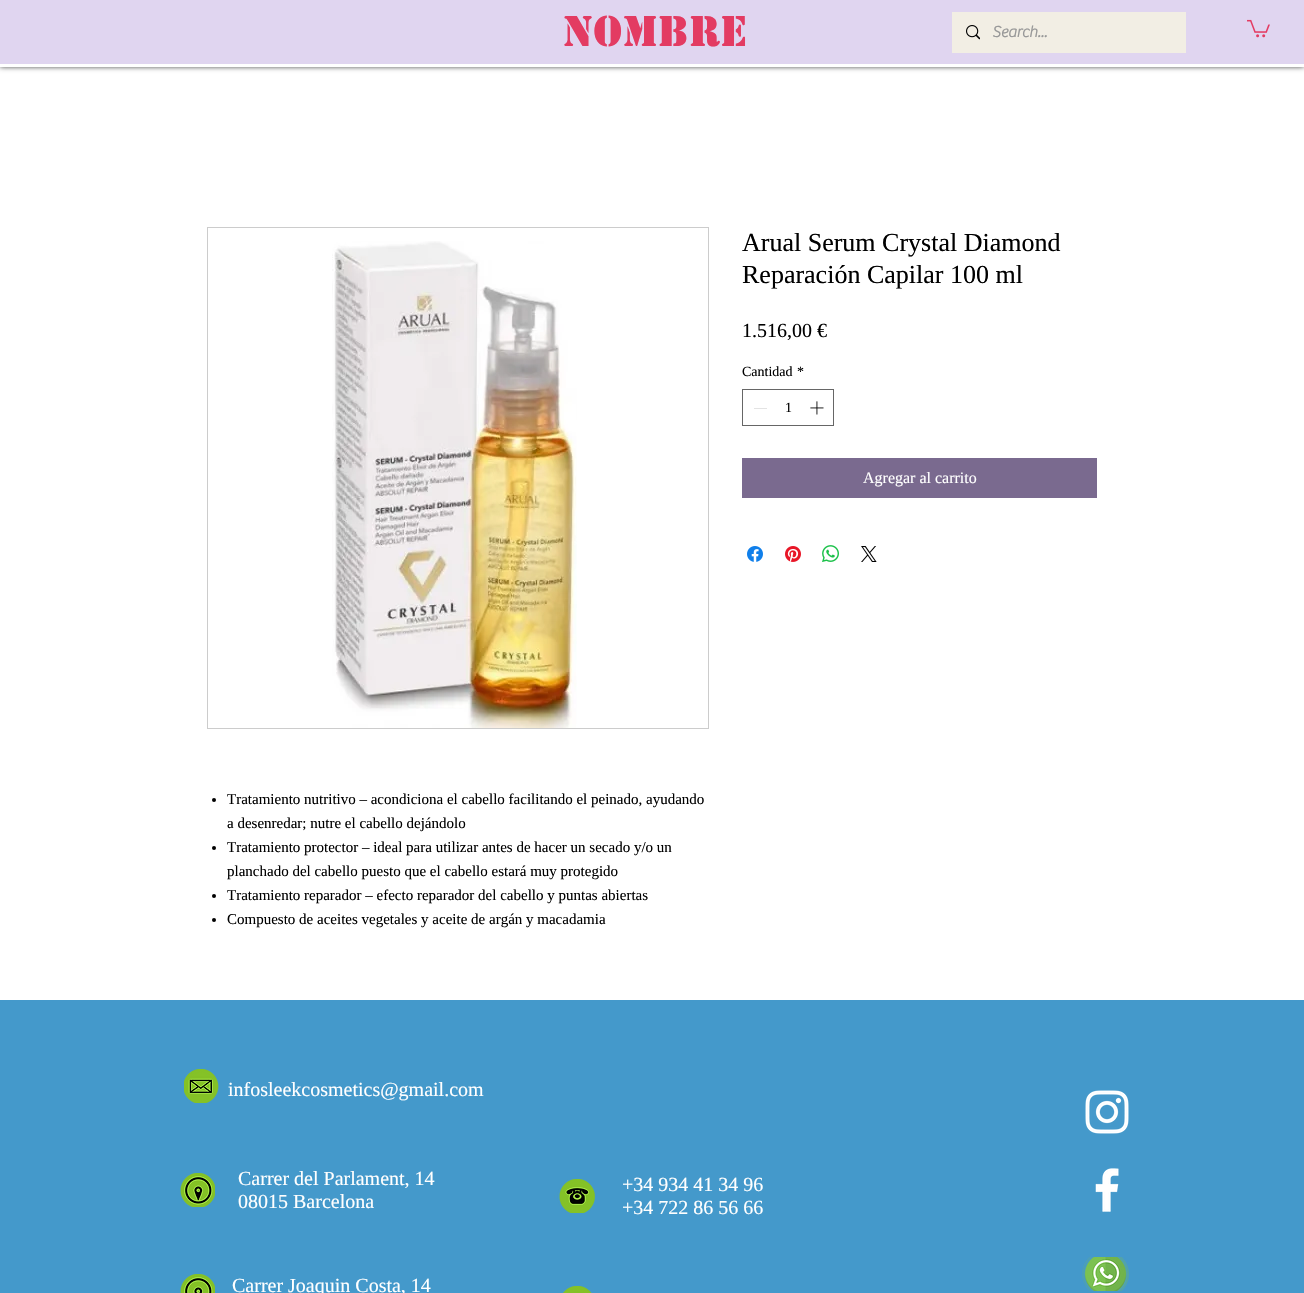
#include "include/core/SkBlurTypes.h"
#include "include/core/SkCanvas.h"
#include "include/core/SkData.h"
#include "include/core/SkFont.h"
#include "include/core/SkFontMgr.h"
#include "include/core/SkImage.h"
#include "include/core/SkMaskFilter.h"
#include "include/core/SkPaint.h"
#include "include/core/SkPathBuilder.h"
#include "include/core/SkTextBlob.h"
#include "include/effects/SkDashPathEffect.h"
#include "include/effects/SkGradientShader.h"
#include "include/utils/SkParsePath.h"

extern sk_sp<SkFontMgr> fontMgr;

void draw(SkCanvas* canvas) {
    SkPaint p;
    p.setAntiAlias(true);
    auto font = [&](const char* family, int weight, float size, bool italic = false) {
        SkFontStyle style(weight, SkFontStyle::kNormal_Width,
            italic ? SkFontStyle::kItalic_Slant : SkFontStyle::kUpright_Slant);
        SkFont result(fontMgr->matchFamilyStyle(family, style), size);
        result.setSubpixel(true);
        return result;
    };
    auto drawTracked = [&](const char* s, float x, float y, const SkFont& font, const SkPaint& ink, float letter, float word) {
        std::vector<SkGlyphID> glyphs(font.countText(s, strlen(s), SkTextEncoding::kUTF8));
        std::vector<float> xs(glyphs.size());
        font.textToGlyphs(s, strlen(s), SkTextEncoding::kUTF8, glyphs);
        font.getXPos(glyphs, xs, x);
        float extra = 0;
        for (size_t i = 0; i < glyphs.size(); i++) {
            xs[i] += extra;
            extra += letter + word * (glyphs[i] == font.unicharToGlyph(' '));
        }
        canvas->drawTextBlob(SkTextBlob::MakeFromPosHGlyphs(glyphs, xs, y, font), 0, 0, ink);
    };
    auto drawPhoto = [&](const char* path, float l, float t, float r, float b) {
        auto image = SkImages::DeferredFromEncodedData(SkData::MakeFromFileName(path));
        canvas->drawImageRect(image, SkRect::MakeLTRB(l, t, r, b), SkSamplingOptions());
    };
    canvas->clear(0xFFFFFFFF);
    p.setColor(0xB3000000);
    p.setMaskFilter(SkMaskFilter::MakeBlur(kNormal_SkBlurStyle, 2.5f));
    canvas->drawRect(SkRect::MakeLTRB(0, 0, 1304, 67), p);
    p.setMaskFilter(nullptr);
    p.setColor(0xFFE0D5F0);
    canvas->drawRect(SkRect::MakeLTRB(0, 0, 1304, 64), p);
    p.setColor(0xFFFFFFFF);
    canvas->drawRect(SkRect::MakeLTRB(0, 64, 1304, 67), p);
    auto font1 = font("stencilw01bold", 700, 40);
    p.setColor(0xFFE33B62);
    drawTracked("Nombre", 563, 46, font1, p, 0.5f, 0);
    p.setColor(0xFFF2EEE4);
    canvas->drawRect(SkRect::MakeLTRB(952, 12, 1186, 53), p);
    drawPhoto("media/1.png", 966, 25, 980, 40);
    auto font2 = font("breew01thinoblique", 700, 16);
    p.setColor(0xFF999999);
    canvas->drawString("Search...", 992, 37, font2, p);
    drawPhoto("media/2.png", 1247, 19, 1270, 38);
    auto font3 = font("Liberation Serif", 400, 26);
    p.setColor(0xFF000000);
    canvas->drawString("Arual Serum Crystal Diamond", 742, 251, font3, p);
    canvas->drawString("Reparación Capilar 100 ml", 742, 283, font3, p);
    auto font4 = font("Liberation Serif", 400, 20);
    canvas->drawString("1.516,00 €", 742, 337, font4, p);
    auto font5 = font("Liberation Serif", 400, 14);
    canvas->drawString("Cantidad", 742, 376, font5, p);
    canvas->drawString("*", 797, 376, font5, p);
    p.setStyle(SkPaint::kStroke_Style);
    p.setStrokeWidth(1);
    p.setColor(0xFF666666);
    canvas->drawRect(SkRect::MakeLTRB(742.5f, 389.5f, 833.5f, 425.5f), p);
    p.setStyle(SkPaint::kFill_Style);
    p.setColor(0xFFE3E3E3);
    canvas->drawRect(SkRect::MakeLTRB(754, 408, 767, 409), p);
    p.setColor(0xFF000000);
    canvas->drawString("1", 785, 412, font5, p);
    drawPhoto("media/3.png", 810, 401, 824, 415);
    p.setColor(0xFF7A6A8F);
    canvas->drawRect(SkRect::MakeLTRB(742, 458, 1097, 498), p);
    auto font6 = font("Liberation Serif", 400, 16);
    p.setColor(0xFFFFFFFF);
    canvas->drawString("Agregar al carrito", 863, 483, font6, p);
    drawPhoto("media/4.png", 747, 546, 763, 562);
    drawPhoto("media/5.png", 785, 546, 801, 562);
    drawPhoto("media/6.png", 822, 545, 839, 562);
    drawPhoto("media/7.png", 861, 546, 877, 562);
    p.setStyle(SkPaint::kStroke_Style);
    p.setColor(0xFFCCCCCC);
    canvas->drawRect(SkRect::MakeLTRB(207.5f, 227.5f, 708.5f, 728.5f), p);
    drawPhoto("media/8.png", 332, 241, 577, 728);
    p.setStyle(SkPaint::kFill_Style);
    p.setColor(0xFF000000);
    canvas->drawCircle(214, 800, 2, p);
    auto font7 = font("Liberation Serif", 400, 15);
    canvas->drawString("Tratamiento nutritivo – acondiciona el cabello facilitando el peinado, ayudando", 227, 804, font7, p);
    canvas->drawString("a desenredar; nutre el cabello dejándolo", 227, 828, font7, p);
    canvas->drawCircle(214, 848, 2, p);
    canvas->drawString("Tratamiento protector – ideal para utilizar antes de hacer un secado y/o un", 227, 852, font7, p);
    canvas->drawString("planchado del cabello puesto que el cabello estará muy protegido", 227, 876, font7, p);
    canvas->drawCircle(214, 896, 2, p);
    canvas->drawString("Tratamiento reparador – efecto reparador del cabello y puntas abiertas", 227, 900, font7, p);
    canvas->drawCircle(214, 920, 2, p);
    canvas->drawString("Compuesto de aceites vegetales y aceite de argán y macadamia", 227, 924, font7, p);
    p.setColor(0xFF4499CB);
    canvas->drawRect(SkRect::MakeLTRB(0, 1000, 1304, 1293), p);
    drawPhoto("media/9.png", 184, 1069, 219, 1103);
    p.setColor(0xFFFFFFFF);
    canvas->drawString("infosleekcosmetics@gmail.com", 228, 1096, font4, p);
    drawPhoto("media/10.png", 1085, 1090, 1129, 1134);
    drawPhoto("media/11.png", 1095, 1168, 1119, 1212);
    drawPhoto("media/12.png", 180, 1173, 215, 1207);
    canvas->drawString("Carrer del Parlament, 14", 238, 1185, font4, p);
    canvas->drawString("08015 Barcelona", 238, 1208, font4, p);
    drawPhoto("media/13.png", 554, 1179, 595, 1213);
    canvas->drawString("+34 934 41 34 96", 622, 1191, font4, p);
    canvas->drawString("+34 722 86 56 66", 622, 1214, font4, p);
    drawPhoto("media/14.png", 180, 1274, 215, 1293);
    canvas->drawString("Carrer Joaquin Costa, 14", 232, 1292, font4, p);
    drawPhoto("media/15.png", 563, 1286, 592, 1293);
    drawPhoto("media/16.png", 1082, 1257, 1129, 1291);
}
